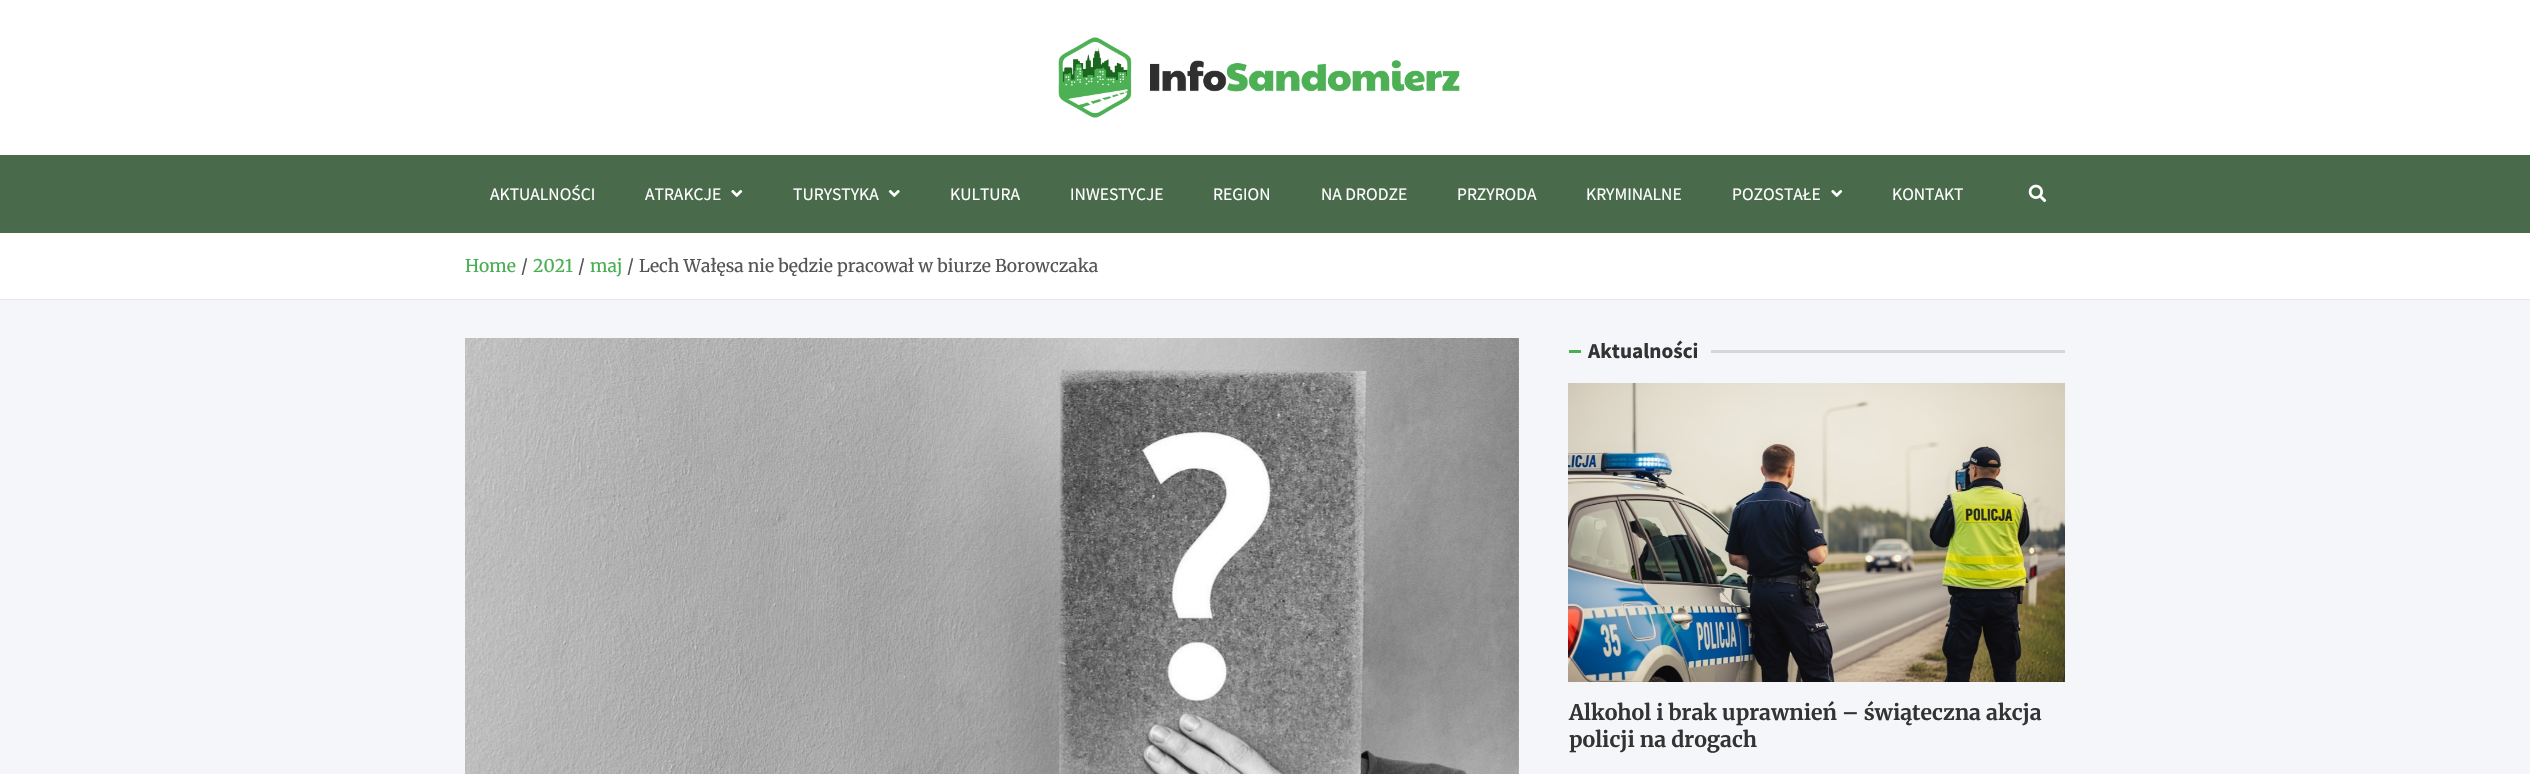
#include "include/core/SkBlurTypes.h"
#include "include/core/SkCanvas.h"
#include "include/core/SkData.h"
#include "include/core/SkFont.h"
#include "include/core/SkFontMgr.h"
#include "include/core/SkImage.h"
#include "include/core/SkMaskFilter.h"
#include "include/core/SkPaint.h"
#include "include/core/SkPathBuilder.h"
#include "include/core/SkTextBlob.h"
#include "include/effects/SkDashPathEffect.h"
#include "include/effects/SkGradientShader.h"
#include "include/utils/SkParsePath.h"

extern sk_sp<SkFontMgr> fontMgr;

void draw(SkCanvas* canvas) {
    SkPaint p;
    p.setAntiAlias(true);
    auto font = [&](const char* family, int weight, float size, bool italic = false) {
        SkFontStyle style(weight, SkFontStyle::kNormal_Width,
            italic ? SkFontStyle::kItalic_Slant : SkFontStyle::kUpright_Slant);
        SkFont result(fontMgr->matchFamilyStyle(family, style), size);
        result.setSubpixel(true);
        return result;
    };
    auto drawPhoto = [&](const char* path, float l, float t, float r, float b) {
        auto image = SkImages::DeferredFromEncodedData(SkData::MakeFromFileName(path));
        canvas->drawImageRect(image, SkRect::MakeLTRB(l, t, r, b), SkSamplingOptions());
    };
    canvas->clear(0xFFF4F6F9);
    p.setColor(0xFFFFFFFF);
    canvas->drawRect(SkRect::MakeLTRB(0, 0, 2530, 155), p);
    drawPhoto("media/1.png", 1058, 37, 1460, 118);
    p.setColor(0xFF496A4B);
    canvas->drawRect(SkRect::MakeLTRB(0, 155, 2530, 233), p);
    auto font1 = font("Source Sans Pro", 400, 17.5f);
    p.setColor(0xFFFFFFFF);
    canvas->drawString("AKTUALNOŚCI", 490, 200, font1, p);
    canvas->drawString("ATRAKCJE", 645, 200, font1, p);
    drawPhoto("media/2.png", 731, 190, 743, 197);
    canvas->drawString("TURYSTYKA", 793, 200, font1, p);
    drawPhoto("media/3.png", 888, 190, 900, 197);
    {
        const struct { const char* s; float x, y; } items[] = {
            {"KULTURA", 950, 200},
            {"INWESTYCJE", 1070, 200},
            {"REGION", 1213, 200},
            {"NA DRODZE", 1321, 200},
            {"PRZYRODA", 1457, 200},
            {"KRYMINALNE", 1586, 200},
            {"POZOSTAŁE", 1732, 200},
        };
        for (auto [s, x, y] : items) {
            canvas->drawString(s, x, y, font1, p);
        }
    }
    drawPhoto("media/2.png", 1831, 190, 1843, 197);
    canvas->drawString("KONTAKT", 1892, 200, font1, p);
    drawPhoto("media/4.png", 2028, 184, 2047, 203);
    canvas->drawRect(SkRect::MakeLTRB(0, 233, 2530, 299), p);
    p.setColor(0xFFE6E6E6);
    canvas->drawRect(SkRect::MakeLTRB(0, 299, 2530, 300), p);
    auto font2 = font("Merriweather", 400, 17.5f);
    p.setColor(0xFF4AAF52);
    canvas->drawString("Home", 465, 272, font2, p);
    p.setColor(0xFF555555);
    canvas->drawString("/", 521, 272, font2, p);
    p.setColor(0xFF4AAF52);
    canvas->drawString("2021", 533, 272, font2, p);
    p.setColor(0xFF555555);
    canvas->drawString("/", 578, 272, font2, p);
    p.setColor(0xFF4AAF52);
    canvas->drawString("maj", 590, 272, font2, p);
    p.setColor(0xFF555555);
    canvas->drawString("/", 627, 272, font2, p);
    canvas->drawString("Lech Wałęsa nie będzie pracował w biurze Borowczaka", 639, 272, font2, p);
    drawPhoto("media/5.png", 465, 338, 1519, 774);
    p.setColor(0xFF4AAF52);
    canvas->drawRect(SkRect::MakeLTRB(1569, 350, 1581, 353), p);
    auto font3 = font("Source Sans Pro", 700, 21.25f);
    p.setColor(0xFF333333);
    canvas->drawString("Aktualności", 1588, 358, font3, p);
    p.setColor(0xFFD4D6D8);
    canvas->drawRect(SkRect::MakeLTRB(1711, 350, 2065, 353), p);
    drawPhoto("media/6.png", 1568, 383, 2065, 682);
    auto font4 = font("Merriweather", 700, 21.25f);
    p.setColor(0xFF333333);
    canvas->drawString("Alkohol i brak uprawnień – świąteczna akcja", 1569, 720, font4, p);
    canvas->drawString("policji na drogach", 1569, 747, font4, p);
}
